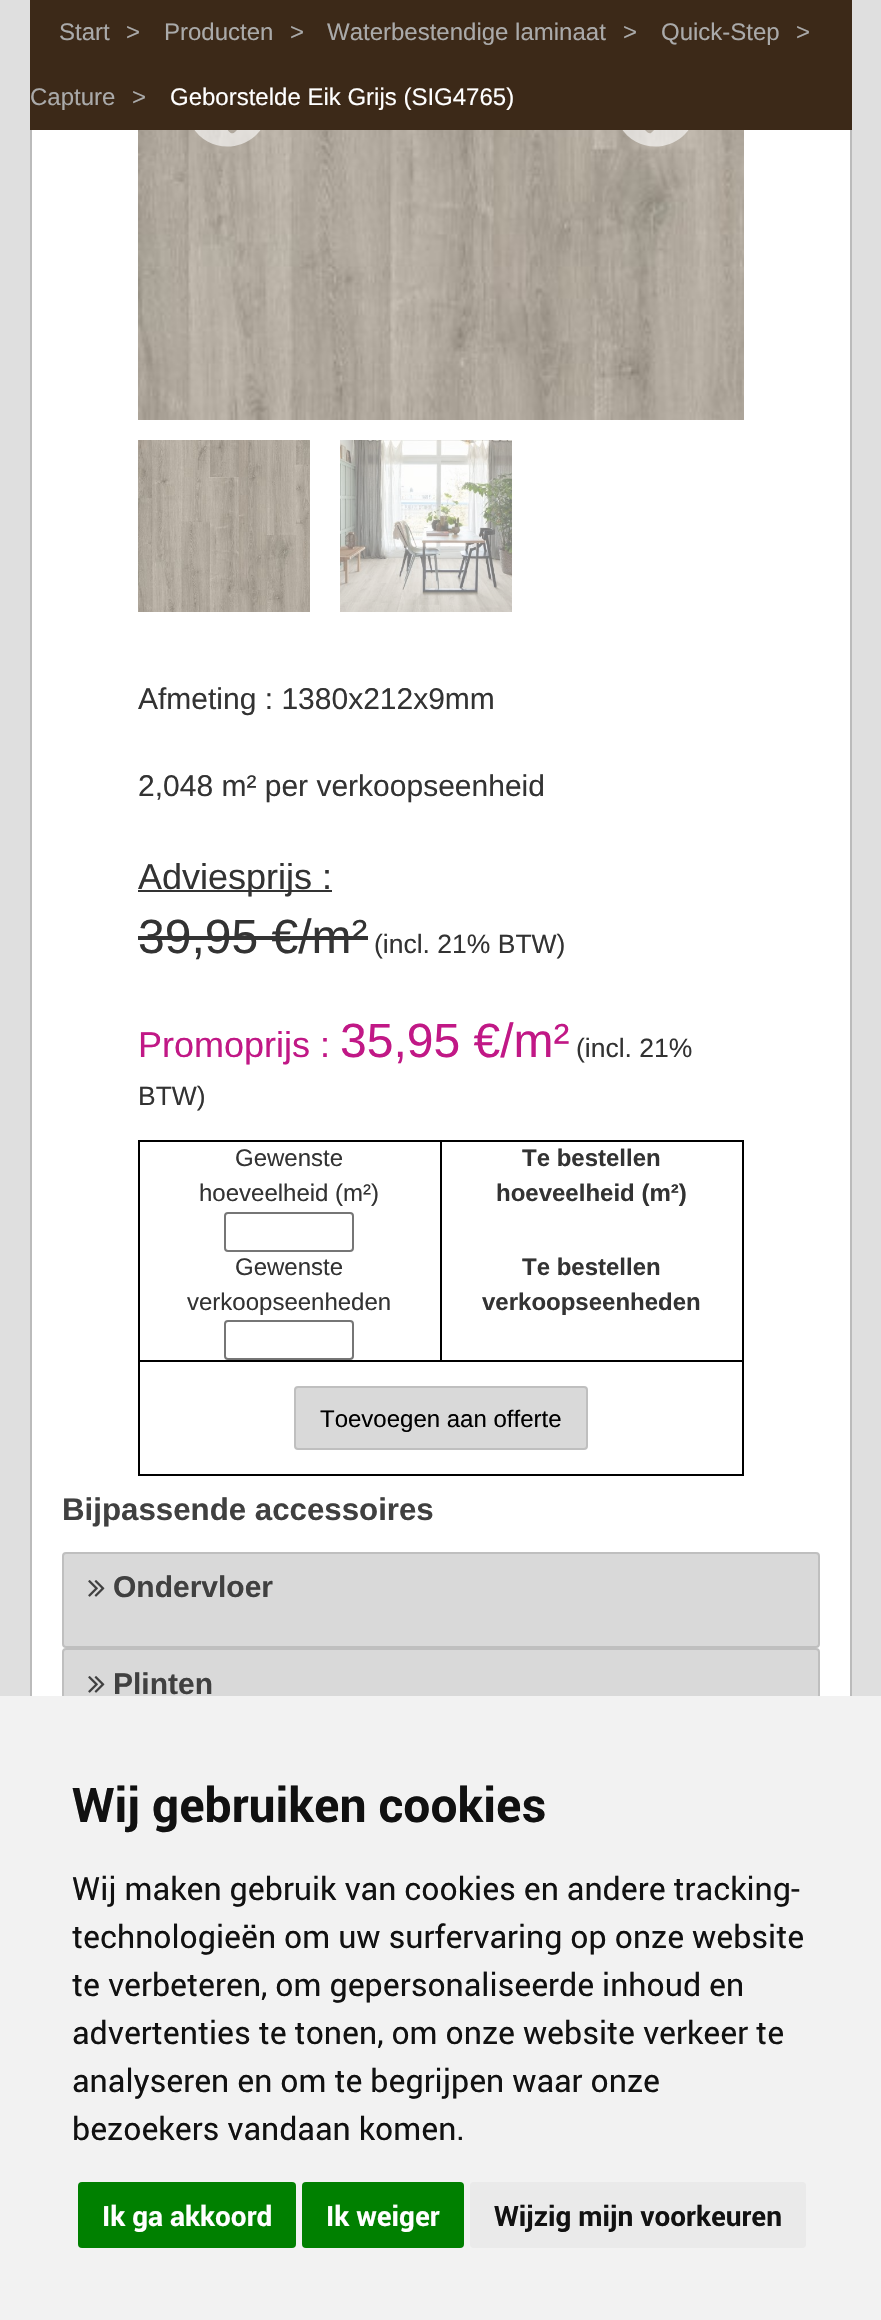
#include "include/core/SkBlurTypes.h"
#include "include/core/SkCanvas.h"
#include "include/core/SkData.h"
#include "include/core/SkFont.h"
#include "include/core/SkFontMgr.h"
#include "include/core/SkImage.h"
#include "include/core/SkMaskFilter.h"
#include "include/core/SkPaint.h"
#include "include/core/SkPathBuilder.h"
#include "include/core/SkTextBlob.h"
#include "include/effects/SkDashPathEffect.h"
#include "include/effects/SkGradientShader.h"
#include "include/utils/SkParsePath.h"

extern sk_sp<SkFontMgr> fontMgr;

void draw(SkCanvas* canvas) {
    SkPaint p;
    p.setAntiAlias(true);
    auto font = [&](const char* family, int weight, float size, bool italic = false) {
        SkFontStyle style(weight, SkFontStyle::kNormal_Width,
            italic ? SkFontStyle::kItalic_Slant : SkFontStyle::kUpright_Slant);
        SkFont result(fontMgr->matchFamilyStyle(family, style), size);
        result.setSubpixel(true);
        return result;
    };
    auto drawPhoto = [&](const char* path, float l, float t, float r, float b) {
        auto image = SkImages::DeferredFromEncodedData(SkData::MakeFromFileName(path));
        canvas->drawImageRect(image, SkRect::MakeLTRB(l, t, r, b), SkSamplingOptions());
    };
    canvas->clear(0xFFDFDFDF);
    p.setColor(0xFFFFFFFF);
    canvas->drawRect(SkRect::MakeLTRB(32, 130, 850, 1696), p);
    p.setStyle(SkPaint::kStroke_Style);
    p.setStrokeWidth(2);
    p.setColor(0xFFBBBBBB);
    canvas->drawRect(SkRect::MakeLTRB(31, -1, 851, 1969), p);
    drawPhoto("media/1.png", 138, 130, 744, 420);
    p.setStyle(SkPaint::kFill_Style);
    p.setColor(0x99FFFFFF);
    canvas->drawPath(SkPathBuilder().moveTo(235, 132).cubicTo(241, 126, 244, 126, 237, 119).lineTo(224, 106).lineTo(240, 89).cubicTo(242, 87, 241, 85, 239, 83).cubicTo(232, 77, 233, 76, 226, 83).lineTo(210, 99).cubicTo(203, 106, 203, 105, 210, 112).lineTo(226, 128).cubicTo(228, 130, 231, 136, 235, 132).close().moveTo(263, 85).cubicTo(267, 92, 269, 100, 268, 108).cubicTo(266, 149, 212, 161, 192, 126).cubicTo(187, 119, 186, 111, 186, 103).cubicTo(189, 63, 243, 50, 263, 85).close().detach(), p);
    canvas->drawPath(SkPathBuilder().moveTo(652, 132).lineTo(673, 112).cubicTo(679, 105, 679, 106, 673, 99).lineTo(661, 87).cubicTo(653, 80, 652, 74, 645, 81).cubicTo(640, 86, 639, 87, 645, 92).lineTo(659, 106).lineTo(645, 119).cubicTo(639, 125, 640, 125, 645, 130).cubicTo(647, 132, 650, 135, 652, 132).close().moveTo(691, 85).cubicTo(695, 92, 697, 100, 696, 108).cubicTo(694, 149, 640, 161, 620, 126).cubicTo(615, 119, 614, 111, 614, 103).cubicTo(617, 63, 671, 50, 691, 85).close().detach(), p);
    p.setColor(0xFF3C2918);
    canvas->drawRect(SkRect::MakeLTRB(30, 0, 852, 130), p);
    auto font1 = font("Liberation Sans", 400, 24);
    p.setColor(0xFFAAAAAA);
    {
        const struct { const char* s; float x, y; } items[] = {
            {"Start", 59, 40},
            {">", 126, 40},
            {"Producten", 164, 40},
            {">", 290, 40},
            {"Waterbestendige laminaat", 327, 40},
            {">", 623, 40},
            {"Quick-Step", 661, 40},
            {">", 796, 40},
            {"Capture", 30, 105},
            {">", 132, 105},
        };
        for (auto [s, x, y] : items) {
            canvas->drawString(s, x, y, font1, p);
        }
    }
    p.setColor(0xFFFFFFFF);
    canvas->drawString("Geborstelde Eik Grijs (SIG4765)", 170, 105, font1, p);
    drawPhoto("media/2.png", 138, 440, 310, 612);
    drawPhoto("media/3.png", 340, 440, 512, 612);
    auto font2 = font("Liberation Sans", 400, 30);
    p.setColor(0xFF333333);
    canvas->drawString("Afmeting : 1380x212x9mm", 138, 709, font2, p);
    canvas->drawString("2,048 m² per verkoopseenheid", 138, 796, font2, p);
    canvas->drawRect(SkRect::MakeLTRB(138, 890, 332, 892), p);
    auto font3 = font("Liberation Sans", 400, 36);
    canvas->drawString("Adviesprijs :", 138, 889, font3, p);
    auto font4 = font("Liberation Sans", 400, 48);
    canvas->drawString("39,95 €/m²", 138, 953, font4, p);
    canvas->drawRect(SkRect::MakeLTRB(138, 936, 368, 940), p);
    auto font5 = font("Liberation Sans", 400, 26.5f);
    canvas->drawString("(incl. 21% BTW)", 374, 953, font5, p);
    p.setColor(0xFFC11886);
    canvas->drawString("Promoprijs :", 138, 1057, font3, p);
    canvas->drawString("35,95 €/m²", 340, 1057, font4, p);
    p.setColor(0xFF333333);
    canvas->drawString("(incl. 21%", 576, 1057, font5, p);
    canvas->drawString("BTW)", 138, 1105, font5, p);
    p.setStyle(SkPaint::kStroke_Style);
    p.setColor(0xFF000000);
    canvas->drawRect(SkRect::MakeLTRB(139, 1141, 743, 1475), p);
    p.setStyle(SkPaint::kFill_Style);
    canvas->drawRect(SkRect::MakeLTRB(440, 1142, 442, 1362), p);
    p.setColor(0xFF333333);
    canvas->drawString("Gewenste", 235, 1166, font1, p);
    canvas->drawString("hoeveelheid (m²)", 199, 1201, font1, p);
    auto font6 = font("Liberation Sans", 700, 24);
    canvas->drawString("Te bestellen", 522, 1166, font6, p);
    canvas->drawString("hoeveelheid (m²)", 496, 1201, font6, p);
    p.setStyle(SkPaint::kStroke_Style);
    p.setColor(0xFF767676);
    canvas->drawRoundRect(SkRect::MakeLTRB(225, 1213, 353, 1251), 3, 3, p);
    p.setStyle(SkPaint::kFill_Style);
    p.setColor(0xFF333333);
    canvas->drawString("Gewenste", 235, 1275, font1, p);
    canvas->drawString("verkoopseenheden", 187, 1310, font1, p);
    canvas->drawString("Te bestellen", 522, 1275, font6, p);
    canvas->drawString("verkoopseenheden", 482, 1310, font6, p);
    p.setColor(0xFF000000);
    canvas->drawRect(SkRect::MakeLTRB(140, 1360, 742, 1362), p);
    p.setStyle(SkPaint::kStroke_Style);
    p.setColor(0xFF767676);
    canvas->drawRoundRect(SkRect::MakeLTRB(225, 1321, 353, 1359), 3, 3, p);
    p.setStyle(SkPaint::kFill_Style);
    p.setColor(0xFFD9D9D9);
    canvas->drawRoundRect(SkRect::MakeLTRB(295, 1387, 587, 1449), 3, 3, p);
    p.setStyle(SkPaint::kStroke_Style);
    p.setColor(0xFFBFBFBF);
    canvas->drawRoundRect(SkRect::MakeLTRB(295, 1387, 587, 1449), 3, 3, p);
    p.setStyle(SkPaint::kFill_Style);
    p.setColor(0xFF000000);
    canvas->drawString("Toevoegen aan offerte", 320, 1427, font1, p);
    auto font7 = font("Liberation Sans", 700, 31.25f);
    p.setColor(0xFF404040);
    canvas->drawString("Bijpassende accessoires", 62, 1520, font7, p);
    p.setColor(0xFFD9D9D9);
    canvas->drawRoundRect(SkRect::MakeLTRB(63, 1553, 819, 1647), 3, 3, p);
    p.setStyle(SkPaint::kStroke_Style);
    p.setColor(0xFFBFBFBF);
    canvas->drawRoundRect(SkRect::MakeLTRB(63, 1553, 819, 1647), 3, 3, p);
    drawPhoto("media/4.png", 88, 1580, 105, 1597);
    auto font8 = font("Liberation Sans", 700, 30);
    p.setStyle(SkPaint::kFill_Style);
    p.setColor(0xFF404040);
    canvas->drawString("Ondervloer", 113, 1597, font8, p);
    p.setColor(0xFFD9D9D9);
    canvas->drawRoundRect(SkRect::MakeLTRB(63, 1649, 819, 1745), 3, 3, p);
    p.setStyle(SkPaint::kStroke_Style);
    p.setColor(0xFFBFBFBF);
    canvas->drawRoundRect(SkRect::MakeLTRB(63, 1649, 819, 1745), 3, 3, p);
    drawPhoto("media/4.png", 88, 1676, 105, 1693);
    p.setStyle(SkPaint::kFill_Style);
    p.setColor(0xFF404040);
    canvas->drawString("Plinten", 113, 1694, font8, p);
    p.setColor(0xFFF2F2F2);
    canvas->drawRect(SkRect::MakeLTRB(0, 1696, 881, 2320), p);
    auto font9 = font("Roboto", 700, 48);
    p.setColor(0xFF111111);
    canvas->drawString("Wij gebruiken cookies", 72, 1822, font9, p);
    auto font10 = font("Roboto", 400, 32);
    {
        const struct { const char* s; float x, y; } items[] = {
            {"Wij maken gebruik van cookies en andere tracking-", 72, 1900},
            {"technologieën om uw surfervaring op onze website", 72, 1948},
            {"te verbeteren, om gepersonaliseerde inhoud en", 72, 1996},
            {"advertenties te tonen, om onze website verkeer te", 72, 2044},
            {"analyseren en om te begrijpen waar onze", 72, 2092},
            {"bezoekers vandaan komen.", 72, 2140},
        };
        for (auto [s, x, y] : items) {
            canvas->drawString(s, x, y, font10, p);
        }
    }
    p.setColor(0xFF008000);
    canvas->drawRoundRect(SkRect::MakeLTRB(78, 2182, 296, 2248), 4, 4, p);
    auto font11 = font("Roboto", 700, 28);
    p.setColor(0xFFFFFFFF);
    canvas->drawString("Ik ga akkoord", 102, 2226, font11, p);
    p.setColor(0xFF008000);
    canvas->drawRoundRect(SkRect::MakeLTRB(302, 2182, 464, 2248), 4, 4, p);
    p.setColor(0xFFFFFFFF);
    canvas->drawString("Ik weiger", 326, 2226, font11, p);
    p.setColor(0xFFEAEAEA);
    canvas->drawRoundRect(SkRect::MakeLTRB(470, 2182, 806, 2248), 4, 4, p);
    p.setColor(0xFF111111);
    canvas->drawString("Wijzig mijn voorkeuren", 494, 2226, font11, p);
}
